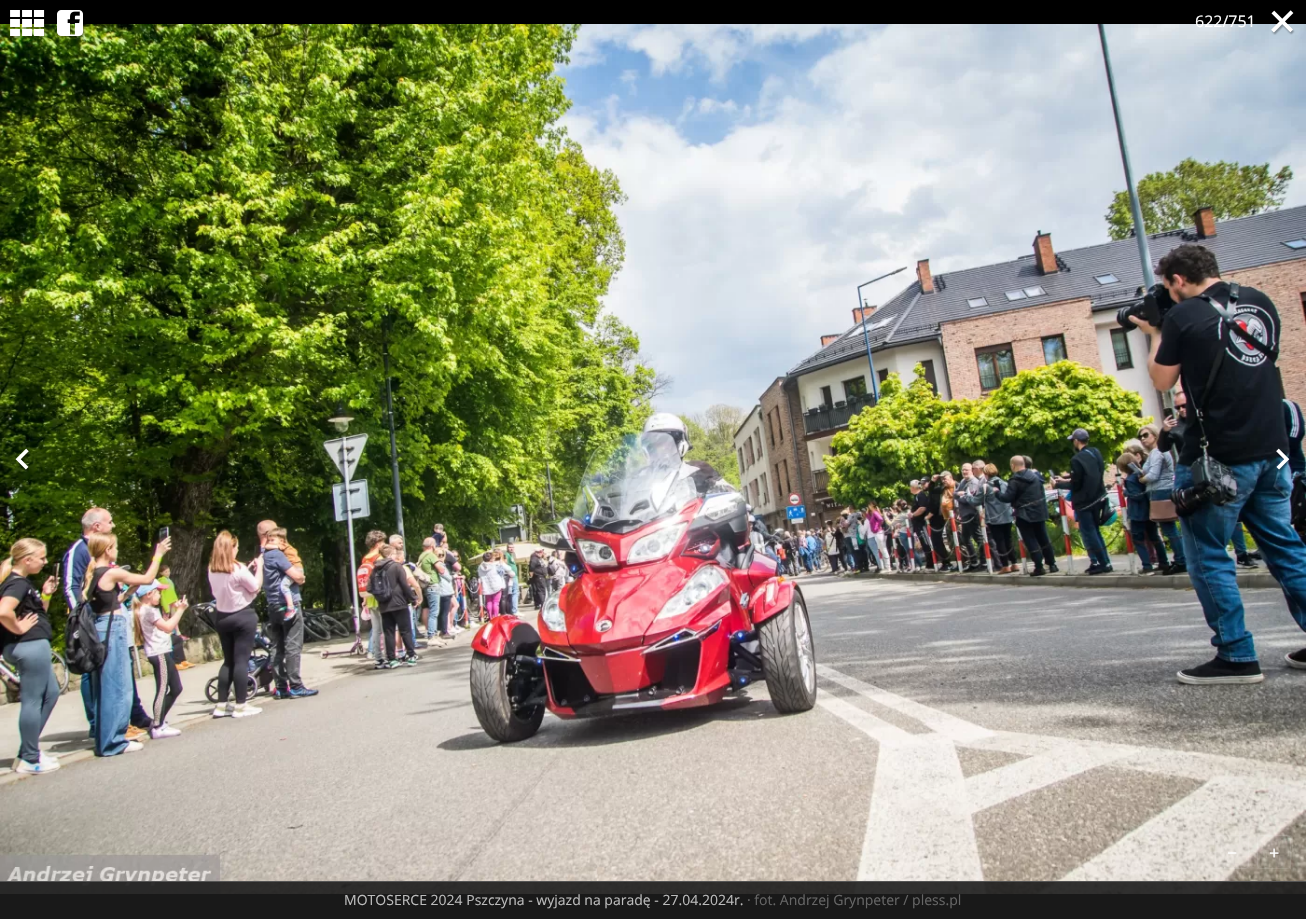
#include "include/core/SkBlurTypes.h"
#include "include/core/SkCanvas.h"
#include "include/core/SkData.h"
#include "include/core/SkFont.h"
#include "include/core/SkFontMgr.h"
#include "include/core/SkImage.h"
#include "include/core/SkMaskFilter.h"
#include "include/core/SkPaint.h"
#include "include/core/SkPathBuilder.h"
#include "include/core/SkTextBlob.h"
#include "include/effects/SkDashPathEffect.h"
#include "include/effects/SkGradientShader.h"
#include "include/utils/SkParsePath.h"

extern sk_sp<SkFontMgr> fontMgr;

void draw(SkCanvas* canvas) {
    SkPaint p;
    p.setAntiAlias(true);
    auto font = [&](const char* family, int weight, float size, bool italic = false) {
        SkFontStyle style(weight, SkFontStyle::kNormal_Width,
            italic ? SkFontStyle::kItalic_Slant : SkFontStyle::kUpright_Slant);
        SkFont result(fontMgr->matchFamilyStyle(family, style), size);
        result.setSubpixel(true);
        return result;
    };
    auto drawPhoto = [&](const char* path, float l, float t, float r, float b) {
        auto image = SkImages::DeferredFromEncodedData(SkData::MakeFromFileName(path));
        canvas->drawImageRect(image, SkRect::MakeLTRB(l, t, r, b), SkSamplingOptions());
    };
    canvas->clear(0xFF000000);
    drawPhoto("media/2.png", 0, 24, 1306, 894);
    auto font1 = font("Open Sans", 400, 16);
    p.setColor(0xFFFFFFFF);
    canvas->drawString("622/751", 1195, 27, font1, p);
    drawPhoto("media/1.png", 1271, 10, 1295, 35);
    drawPhoto("media/3.png", 15, 448, 30, 472);
    drawPhoto("media/4.png", 1276, 448, 1290, 472);
    drawPhoto("media/5.png", 10, 10, 46, 39);
    drawPhoto("media/6.png", 56, 10, 86, 39);
    p.setColor(0x0FFFFFFF);
    canvas->drawRect(SkRect::MakeLTRB(1215, 835, 1249, 869), p);
    p.setStyle(SkPaint::kStroke_Style);
    p.setStrokeWidth(1);
    p.setColor(0x14FFFFFF);
    canvas->drawRoundRect(SkRect::MakeLTRB(1215.5f, 835.5f, 1248.5f, 868.5f), 3.5f, 3.5f, p);
    auto font2 = font("Liberation Serif", 700, 18);
    p.setStyle(SkPaint::kFill_Style);
    p.setColor(0xFFFFFFFF);
    canvas->drawString("−", 1227, 859, font2, p);
    p.setColor(0x0FFFFFFF);
    canvas->drawRect(SkRect::MakeLTRB(1257, 835, 1291, 869), p);
    p.setStyle(SkPaint::kStroke_Style);
    p.setColor(0x14FFFFFF);
    canvas->drawRoundRect(SkRect::MakeLTRB(1257.5f, 835.5f, 1290.5f, 868.5f), 3.5f, 3.5f, p);
    p.setStyle(SkPaint::kFill_Style);
    p.setColor(0xFFFFFFFF);
    canvas->drawString("+", 1269, 859, font2, p);
    p.setColor(0xE61C1C1C);
    canvas->drawRect(SkRect::MakeLTRB(0, 882, 1306, 919), p);
    p.setColor(0xFF555555);
    canvas->drawRect(SkRect::MakeLTRB(0, 881, 1306, 882), p);
    auto font3 = font("Open Sans", 400, 14);
    p.setColor(0xFFBCBCBC);
    canvas->drawString("MOTOSERCE 2024 Pszczyna - wyjazd na paradę - 27.04.2024r.", 344, 905, font3, p);
    p.setColor(0xFF666666);
    canvas->drawString("· fot. Andrzej Grynpeter / pless.pl", 747, 905, font3, p);
}
